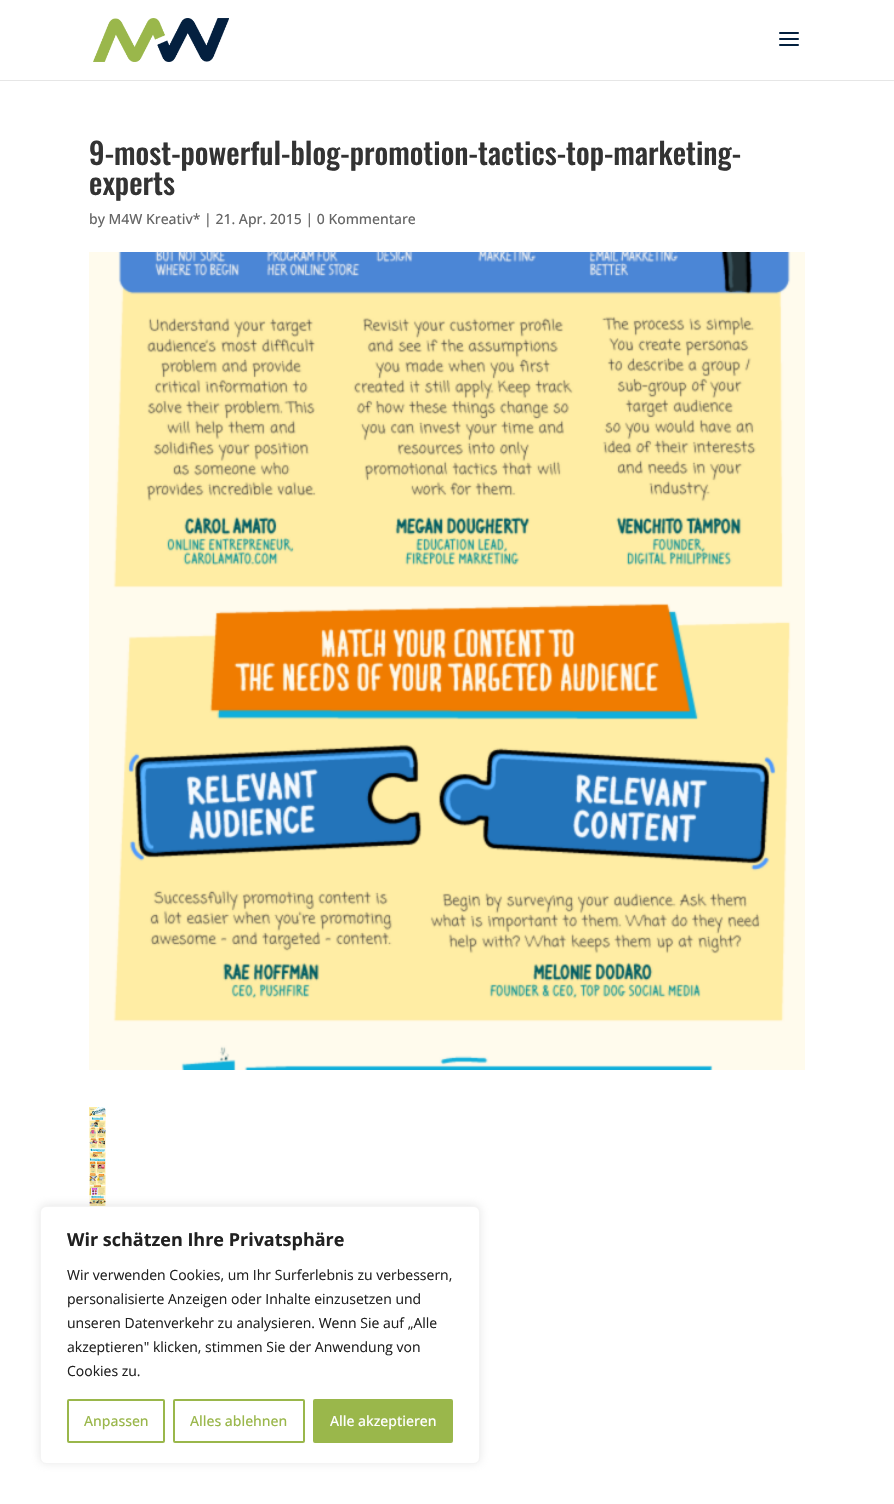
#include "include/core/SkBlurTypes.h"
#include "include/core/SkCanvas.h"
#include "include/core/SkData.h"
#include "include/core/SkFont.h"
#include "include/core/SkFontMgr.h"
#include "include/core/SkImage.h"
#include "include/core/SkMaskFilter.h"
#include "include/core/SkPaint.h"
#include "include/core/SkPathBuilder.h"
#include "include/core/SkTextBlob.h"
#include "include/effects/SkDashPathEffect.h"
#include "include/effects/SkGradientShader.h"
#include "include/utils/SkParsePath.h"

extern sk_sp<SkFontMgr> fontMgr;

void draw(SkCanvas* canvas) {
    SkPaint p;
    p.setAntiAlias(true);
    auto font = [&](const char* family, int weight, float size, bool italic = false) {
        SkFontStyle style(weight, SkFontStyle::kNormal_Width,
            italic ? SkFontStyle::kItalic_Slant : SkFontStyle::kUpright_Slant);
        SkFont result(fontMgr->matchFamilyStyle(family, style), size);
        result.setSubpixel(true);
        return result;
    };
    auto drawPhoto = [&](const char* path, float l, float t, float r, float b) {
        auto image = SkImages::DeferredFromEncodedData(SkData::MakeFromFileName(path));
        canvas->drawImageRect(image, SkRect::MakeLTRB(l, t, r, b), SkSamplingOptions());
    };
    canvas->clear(0xFFFFFFFF);
    p.setColor(0xFFE6E6E6);
    canvas->drawRect(SkRect::MakeLTRB(0, 80, 894, 81), p);
    drawPhoto("media/1.png", 93, 18, 229, 62);
    drawPhoto("media/2.png", 779, 32, 799, 46);
    auto font1 = font("Oswald", 500, 30);
    p.setColor(0xFF333333);
    canvas->drawString("9-most-powerful-blog-promotion-tactics-top-marketing-", 89, 165, font1, p);
    canvas->drawString("experts", 89, 195, font1, p);
    auto font2 = font("Open Sans", 500, 14);
    p.setColor(0xFF666666);
    canvas->drawString("by M4W Kreativ* | 21. Apr. 2015 | 0 Kommentare", 89, 224, font2, p);
    drawPhoto("media/3.png", 89, 252, 805, 1070);
    drawPhoto("media/4.png", 89, 1107, 106, 1206);
    p.setColor(0x4DACABAB);
    p.setMaskFilter(SkMaskFilter::MakeBlur(kNormal_SkBlurStyle, 5));
    canvas->drawRoundRect(SkRect::MakeLTRB(40, 1205, 480, 1463), 6, 6, p);
    p.setMaskFilter(nullptr);
    p.setColor(0xFFFFFFFF);
    canvas->drawRoundRect(SkRect::MakeLTRB(40.5f, 1206.5f, 479.5f, 1463.5f), 5.5f, 5.5f, p);
    p.setStyle(SkPaint::kStroke_Style);
    p.setStrokeWidth(1);
    p.setColor(0xFFF4F4F4);
    canvas->drawRoundRect(SkRect::MakeLTRB(40.5f, 1206.5f, 479.5f, 1463.5f), 5.5f, 5.5f, p);
    auto font3 = font("Open Sans", 700, 18);
    p.setStyle(SkPaint::kFill_Style);
    p.setColor(0xFF212121);
    canvas->drawString("Wir schätzen Ihre Privatsphäre", 67, 1246, font3, p);
    auto font4 = font("Open Sans", 400, 14);
    {
        const struct { const char* s; float x, y; } items[] = {
            {"Wir verwenden Cookies, um Ihr Surferlebnis zu verbessern,", 67, 1280},
            {"personalisierte Anzeigen oder Inhalte einzusetzen und", 67, 1304},
            {"unseren Datenverkehr zu analysieren. Wenn Sie auf „Alle", 67, 1328},
            {"akzeptieren\" klicken, stimmen Sie der Anwendung von", 67, 1352},
            {"Cookies zu.", 67, 1376},
        };
        for (auto [s, x, y] : items) {
            canvas->drawString(s, x, y, font4, p);
        }
    }
    p.setStyle(SkPaint::kStroke_Style);
    p.setStrokeWidth(2);
    p.setColor(0xFF9AB74B);
    canvas->drawRoundRect(SkRect::MakeLTRB(68, 1400, 164, 1442), 1, 1, p);
    p.setStyle(SkPaint::kFill_Style);
    canvas->drawString("Anpassen", 84, 1426, font2, p);
    p.setStyle(SkPaint::kStroke_Style);
    canvas->drawRoundRect(SkRect::MakeLTRB(174, 1400, 304, 1442), 1, 1, p);
    p.setStyle(SkPaint::kFill_Style);
    canvas->drawString("Alles ablehnen", 190, 1426, font2, p);
    canvas->drawRoundRect(SkRect::MakeLTRB(314, 1400, 452, 1442), 1, 1, p);
    p.setStyle(SkPaint::kStroke_Style);
    canvas->drawRoundRect(SkRect::MakeLTRB(314, 1400, 452, 1442), 1, 1, p);
    p.setStyle(SkPaint::kFill_Style);
    p.setColor(0xFFFFFFFF);
    canvas->drawString("Alle akzeptieren", 330, 1426, font2, p);
}
